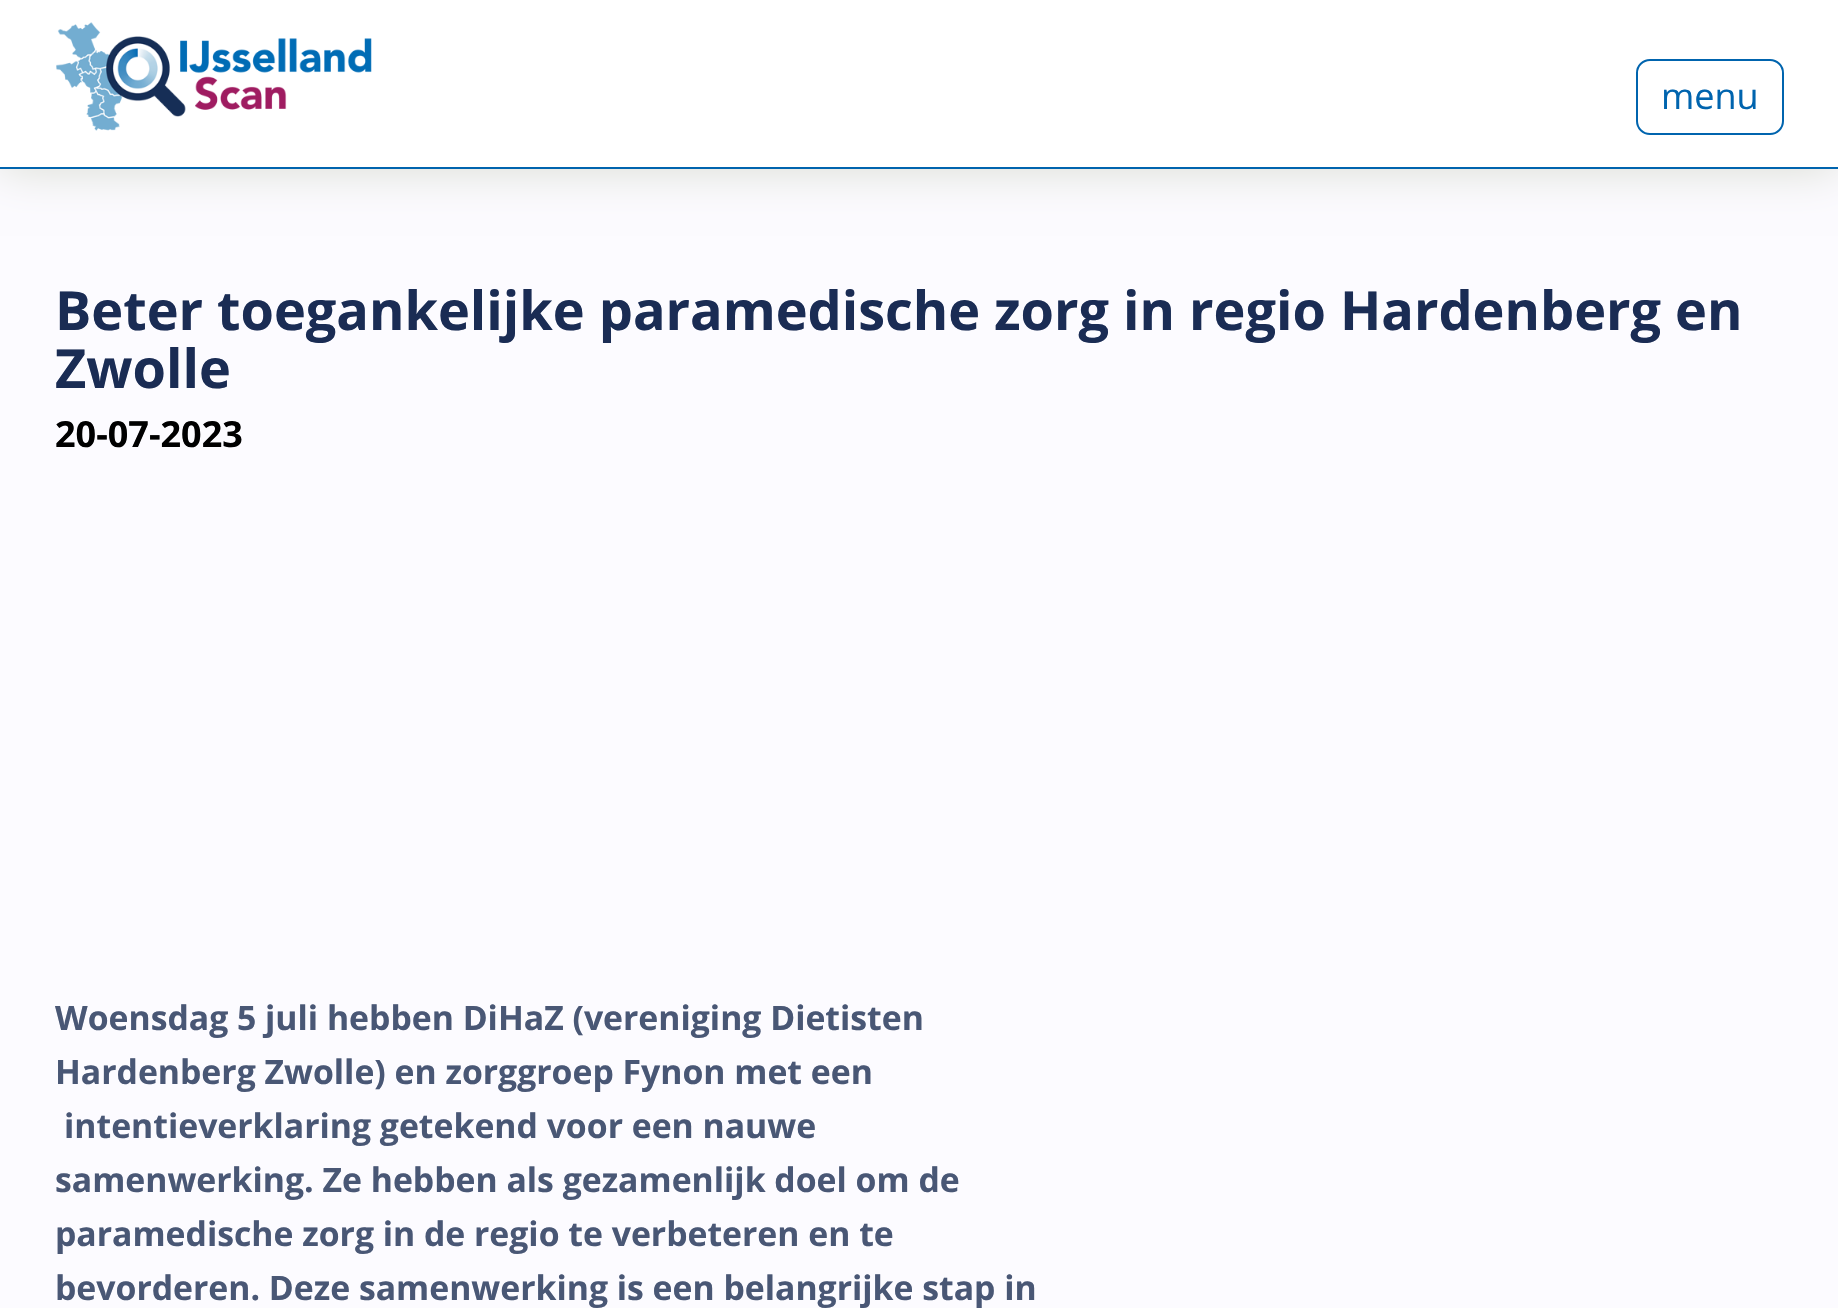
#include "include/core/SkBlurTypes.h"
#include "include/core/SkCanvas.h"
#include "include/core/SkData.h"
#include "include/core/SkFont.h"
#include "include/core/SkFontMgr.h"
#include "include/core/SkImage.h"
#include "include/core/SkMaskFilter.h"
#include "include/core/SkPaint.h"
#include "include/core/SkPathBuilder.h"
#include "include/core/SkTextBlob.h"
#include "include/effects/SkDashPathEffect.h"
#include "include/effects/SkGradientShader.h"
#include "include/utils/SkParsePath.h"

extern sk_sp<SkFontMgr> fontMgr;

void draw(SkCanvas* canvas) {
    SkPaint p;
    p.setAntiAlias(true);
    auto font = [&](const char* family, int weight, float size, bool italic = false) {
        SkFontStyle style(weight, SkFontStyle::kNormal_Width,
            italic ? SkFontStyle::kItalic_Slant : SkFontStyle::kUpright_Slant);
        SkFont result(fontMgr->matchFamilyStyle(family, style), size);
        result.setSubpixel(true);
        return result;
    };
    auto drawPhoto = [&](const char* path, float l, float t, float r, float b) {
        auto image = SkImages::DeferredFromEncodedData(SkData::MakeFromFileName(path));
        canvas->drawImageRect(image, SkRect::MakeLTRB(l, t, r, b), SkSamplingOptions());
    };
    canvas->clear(0xFFFCFBFF);
    p.setColor(0xFFD9DCD2);
    p.setMaskFilter(SkMaskFilter::MakeBlur(kNormal_SkBlurStyle, 22.5f));
    canvas->drawRect(SkRect::MakeLTRB(0, 0, 1838, 169), p);
    p.setMaskFilter(nullptr);
    p.setColor(0xFFFFFFFF);
    canvas->drawRect(SkRect::MakeLTRB(0, 0, 1838, 167), p);
    p.setColor(0xFF0064AE);
    canvas->drawRect(SkRect::MakeLTRB(0, 167, 1838, 169), p);
    drawPhoto("media/1.png", 56, 22, 372, 131);
    p.setStyle(SkPaint::kStroke_Style);
    p.setStrokeWidth(2);
    canvas->drawRoundRect(SkRect::MakeLTRB(1637, 60, 1783, 134), 13, 13, p);
    auto font1 = font("Open Sans", 400, 36);
    p.setStyle(SkPaint::kFill_Style);
    canvas->drawString("menu", 1661, 109, font1, p);
    auto font2 = font("Open Sans", 700, 54);
    p.setColor(0xFF1A2C54);
    canvas->drawString("Beter toegankelijke paramedische zorg in regio Hardenberg en", 55, 330, font2, p);
    canvas->drawString("Zwolle", 55, 388, font2, p);
    auto font3 = font("Open Sans", 700, 36);
    p.setColor(0xFF000000);
    canvas->drawString("20-07-2023", 55, 447, font3, p);
    auto font4 = font("Open Sans", 700, 33.75f);
    p.setColor(0xFF495775);
    {
        const struct { const char* s; float x, y; } items[] = {
            {"Woensdag 5 juli hebben DiHaZ (vereniging Dietisten", 55, 1030},
            {"Hardenberg Zwolle) en zorggroep Fynon met een", 55, 1084},
            {"intentieverklaring getekend voor een nauwe", 64, 1138},
            {"samenwerking. Ze hebben als gezamenlijk doel om de", 55, 1192},
            {"paramedische zorg in de regio te verbeteren en te", 55, 1246},
            {"bevorderen. Deze samenwerking is een belangrijke stap in", 55, 1300},
        };
        for (auto [s, x, y] : items) {
            canvas->drawString(s, x, y, font4, p);
        }
    }
}
